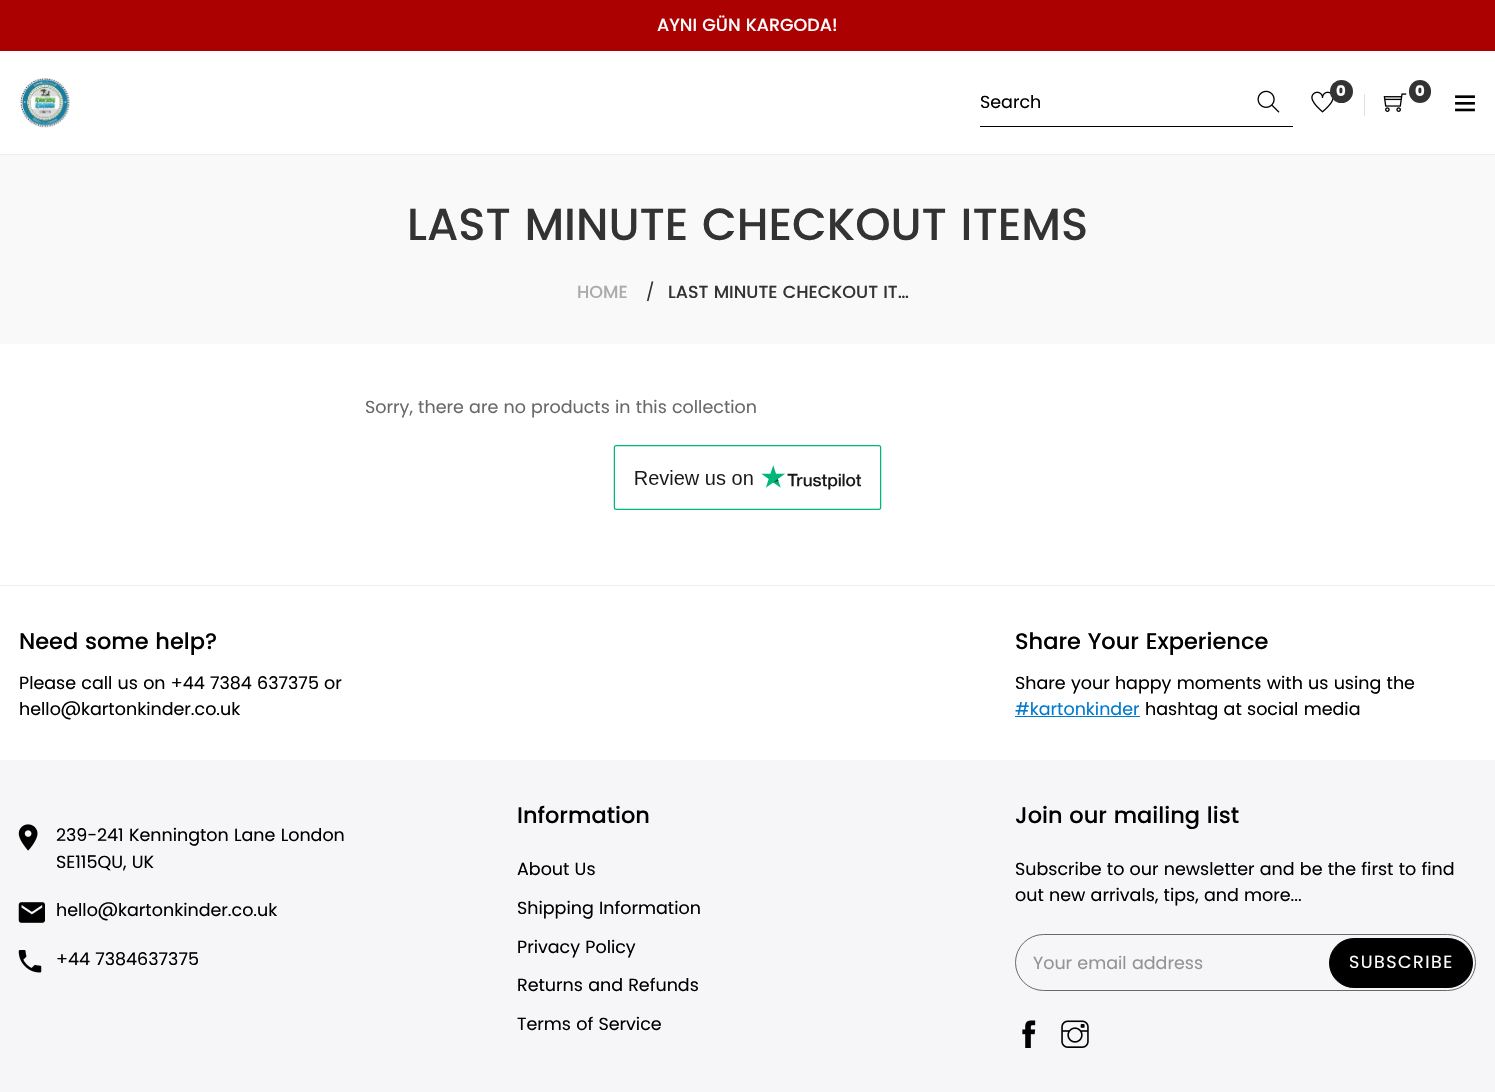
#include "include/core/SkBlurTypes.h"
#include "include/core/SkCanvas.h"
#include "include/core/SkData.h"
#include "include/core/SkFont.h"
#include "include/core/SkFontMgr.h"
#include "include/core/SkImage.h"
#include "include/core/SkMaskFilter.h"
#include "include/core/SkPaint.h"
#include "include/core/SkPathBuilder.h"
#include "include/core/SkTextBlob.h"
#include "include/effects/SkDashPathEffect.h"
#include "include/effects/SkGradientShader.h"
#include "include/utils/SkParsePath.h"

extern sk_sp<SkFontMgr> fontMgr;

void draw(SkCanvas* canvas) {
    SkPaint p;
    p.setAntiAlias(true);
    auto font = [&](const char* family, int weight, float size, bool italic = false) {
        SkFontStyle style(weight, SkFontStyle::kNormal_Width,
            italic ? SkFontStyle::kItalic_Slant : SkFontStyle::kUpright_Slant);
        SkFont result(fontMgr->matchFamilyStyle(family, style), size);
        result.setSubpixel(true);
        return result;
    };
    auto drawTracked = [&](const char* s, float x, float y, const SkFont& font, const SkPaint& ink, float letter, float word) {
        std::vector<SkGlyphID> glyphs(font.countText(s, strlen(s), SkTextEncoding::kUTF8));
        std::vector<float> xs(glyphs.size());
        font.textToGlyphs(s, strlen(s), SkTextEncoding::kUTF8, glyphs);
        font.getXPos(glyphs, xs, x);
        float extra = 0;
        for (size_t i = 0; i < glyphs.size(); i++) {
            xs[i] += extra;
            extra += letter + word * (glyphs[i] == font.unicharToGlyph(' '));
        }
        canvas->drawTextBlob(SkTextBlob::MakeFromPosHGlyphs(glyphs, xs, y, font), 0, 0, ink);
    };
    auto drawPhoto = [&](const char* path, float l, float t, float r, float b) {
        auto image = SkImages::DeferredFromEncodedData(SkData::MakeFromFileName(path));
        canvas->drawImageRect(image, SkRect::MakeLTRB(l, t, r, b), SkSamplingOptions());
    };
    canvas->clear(0xFFFFFFFF);
    p.setColor(0xFFEEEEEE);
    canvas->drawRect(SkRect::MakeLTRB(0, 154, 1495, 155), p);
    p.setColor(0xFFAB0101);
    canvas->drawRect(SkRect::MakeLTRB(0, 0, 1495, 51), p);
    auto font1 = font("Poppins", 500, 17.5f);
    p.setColor(0xFFFFFFFF);
    canvas->drawString("AYNI GÜN KARGODA!", 657, 31, font1, p);
    drawPhoto("media/1.png", 20, 78, 70, 128);
    drawPhoto("media/2.png", 1311, 91, 1334, 113);
    p.setColor(0xFF333333);
    canvas->drawCircle(1341.5f, 91.5f, 11.5f, p);
    auto font2 = font("Poppins", 700, 15);
    p.setColor(0xFFFFFFFF);
    canvas->drawString("0", 1336, 96, font2, p);
    p.setColor(0xFFE0E0E0);
    canvas->drawRect(SkRect::MakeLTRB(1364, 94, 1365, 116), p);
    p.setColor(0xFF333333);
    canvas->drawRoundRect(SkRect::MakeLTRB(1409, 80, 1431, 103), 11, 11, p);
    p.setColor(0xFFFFFFFF);
    canvas->drawString("0", 1415, 96, font2, p);
    drawPhoto("media/3.png", 1383, 93, 1407, 112);
    p.setColor(0xFF000000);
    canvas->drawRect(SkRect::MakeLTRB(980, 126, 1293, 127), p);
    auto font3 = font("Poppins", 400, 17.5f);
    canvas->drawString("Search", 980, 108, font3, p);
    drawPhoto("media/4.png", 1257, 90, 1280, 113);
    drawPhoto("media/5.png", 1455, 95, 1475, 112);
    p.setColor(0xFFF9F9F9);
    canvas->drawRect(SkRect::MakeLTRB(0, 155, 1495, 344), p);
    auto font4 = font("Poppins", 500, 45);
    p.setColor(0xFF333333);
    canvas->drawString("LAST MINUTE CHECKOUT ITEMS", 407, 240, font4, p);
    p.setColor(0xFFABABAB);
    canvas->drawString("HOME", 577, 298, font1, p);
    p.setColor(0xFF333333);
    canvas->drawString("/", 646, 298, font3, p);
    canvas->drawString("LAST MINUTE CHECKOUT IT…", 668, 298, font1, p);
    p.setColor(0xFF696969);
    canvas->drawString("Sorry, there are no products in this collection", 365, 413, font3, p);
    drawPhoto("media/6.png", 613, 445, 882, 510);
    p.setColor(0xFFEEEEEE);
    canvas->drawRect(SkRect::MakeLTRB(0, 585, 1495, 586), p);
    auto font5 = font("Poppins", 500, 22.5f);
    p.setColor(0xFF000000);
    canvas->drawString("Need some help?", 19, 649, font5, p);
    canvas->drawString("Please call us on +44 7384 637375 or", 19, 689, font3, p);
    canvas->drawString("hello@kartonkinder.co.uk", 19, 715, font3, p);
    canvas->drawString("Share Your Experience", 1015, 649, font5, p);
    canvas->drawString("Share your happy moments with us using the", 1015, 689, font3, p);
    p.setColor(0xFF007ACE);
    canvas->drawString("#kartonkinder", 1015, 715, font3, p);
    canvas->drawRect(SkRect::MakeLTRB(1015, 716, 1140, 717), p);
    p.setColor(0xFF000000);
    canvas->drawString("hashtag at social media", 1145, 715, font3, p);
    p.setColor(0xFFF6F6F8);
    canvas->drawRect(SkRect::MakeLTRB(0, 760, 1495, 1092), p);
    drawPhoto("media/7.png", 18, 824, 38, 851);
    p.setColor(0xFF000000);
    canvas->drawString("239-241 Kennington Lane London", 56, 841, font3, p);
    canvas->drawString("SE115QU, UK", 56, 868, font3, p);
    drawPhoto("media/8.png", 18, 902, 45, 923);
    canvas->drawString("hello@kartonkinder.co.uk", 56, 916, font3, p);
    drawPhoto("media/9.png", 18, 950, 42, 973);
    canvas->drawString("+44 7384637375", 56, 965, font3, p);
    canvas->drawString("Information", 517, 823, font5, p);
    {
        const struct { const char* s; float x, y; } items[] = {
            {"About Us", 517, 875},
            {"Shipping Information", 517, 914},
            {"Privacy Policy", 517, 953},
            {"Returns and Refunds", 517, 991},
            {"Terms of Service", 517, 1030},
        };
        for (auto [s, x, y] : items) {
            canvas->drawString(s, x, y, font3, p);
        }
    }
    canvas->drawString("Join our mailing list", 1015, 823, font5, p);
    canvas->drawString("Subscribe to our newsletter and be the first to find", 1015, 875, font3, p);
    canvas->drawString("out new arrivals, tips, and more...", 1015, 901, font3, p);
    p.setStyle(SkPaint::kStroke_Style);
    p.setStrokeWidth(1);
    p.setColor(0xFF696969);
    canvas->drawRoundRect(SkRect::MakeLTRB(1015.5f, 934.5f, 1475.5f, 990.5f), 28, 28, p);
    p.setStyle(SkPaint::kFill_Style);
    p.setColor(0xFF939394);
    canvas->drawString("Your email address", 1033, 969, font3, p);
    p.setColor(0xFF000000);
    canvas->drawRoundRect(SkRect::MakeLTRB(1329.5f, 938.5f, 1472.5f, 987.5f), 24.5f, 24.5f, p);
    p.setStyle(SkPaint::kStroke_Style);
    canvas->drawRoundRect(SkRect::MakeLTRB(1329.5f, 938.5f, 1472.5f, 987.5f), 24.5f, 24.5f, p);
    p.setStyle(SkPaint::kFill_Style);
    p.setColor(0xFFFFFFFF);
    drawTracked("SUBSCRIBE", 1349, 968, font3, p, 1.5f, 0);
    drawPhoto("media/10.png", 1022, 1020, 1036, 1048);
    drawPhoto("media/11.png", 1061, 1020, 1089, 1048);
}
